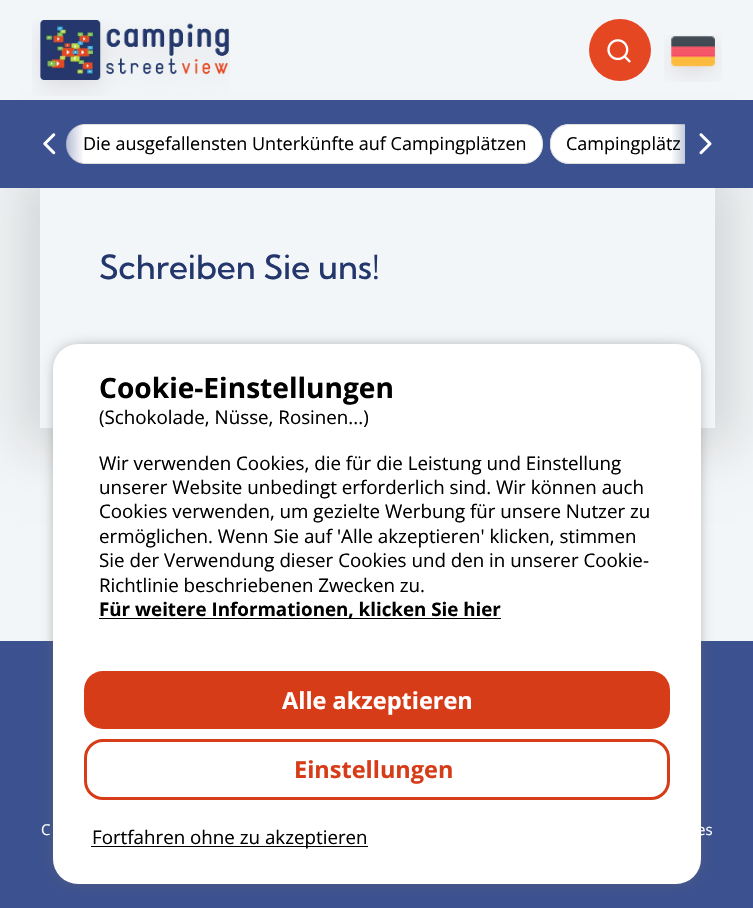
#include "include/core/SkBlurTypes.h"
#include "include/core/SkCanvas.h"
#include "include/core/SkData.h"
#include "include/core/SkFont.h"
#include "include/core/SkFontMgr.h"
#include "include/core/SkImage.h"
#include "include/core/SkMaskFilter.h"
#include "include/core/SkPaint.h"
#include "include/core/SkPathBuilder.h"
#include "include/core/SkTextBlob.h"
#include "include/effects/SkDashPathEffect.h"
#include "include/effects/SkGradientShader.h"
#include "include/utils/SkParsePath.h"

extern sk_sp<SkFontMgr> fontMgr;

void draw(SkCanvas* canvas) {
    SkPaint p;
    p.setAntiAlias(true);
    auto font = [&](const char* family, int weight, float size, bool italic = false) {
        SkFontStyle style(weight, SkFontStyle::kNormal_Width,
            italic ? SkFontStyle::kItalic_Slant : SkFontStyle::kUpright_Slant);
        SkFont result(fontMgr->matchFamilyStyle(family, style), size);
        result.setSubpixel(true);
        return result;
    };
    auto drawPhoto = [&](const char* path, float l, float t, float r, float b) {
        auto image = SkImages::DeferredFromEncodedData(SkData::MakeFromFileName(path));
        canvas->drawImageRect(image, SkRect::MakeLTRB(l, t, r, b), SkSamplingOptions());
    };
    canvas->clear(0xFFF3F6F8);
    p.setColor(0x21000000);
    p.setMaskFilter(SkMaskFilter::MakeBlur(kNormal_SkBlurStyle, 25.5f));
    canvas->drawRect(SkRect::MakeLTRB(19, 166, 736, 449), p);
    p.setMaskFilter(nullptr);
    drawPhoto("media/1.png", 32, 19, 230, 96);
    p.setColor(0xFFE64723);
    canvas->drawCircle(620, 50, 31, p);
    drawPhoto("media/2.png", 607, 39, 631, 63);
    drawPhoto("media/3.png", 664, 35, 722, 82);
    p.setColor(0xFF3C518F);
    canvas->drawRect(SkRect::MakeLTRB(0, 100, 753, 188), p);
    p.setColor(0xFFFFFFFF);
    canvas->drawRoundRect(SkRect::MakeLTRB(66.5f, 124.5f, 542.5f, 163.5f), 18.5f, 18.5f, p);
    p.setStyle(SkPaint::kStroke_Style);
    p.setStrokeWidth(1);
    p.setColor(0xFFDDDDDD);
    canvas->drawRoundRect(SkRect::MakeLTRB(66.5f, 124.5f, 542.5f, 163.5f), 18.5f, 18.5f, p);
    p.setStyle(SkPaint::kFill_Style);
    {
        const SkColor colors[] = {0x003C518F, 0xFF3C518F, 0x803C518F, 0x003C518F};
        const float stops[] = {0, 0.33f, 0.66f, 1};
        const SkPoint ends[] = {{15, 144}, {84, 144}};
        p.setShader(SkGradientShader::MakeLinear(ends, colors, stops, 4, SkTileMode::kClamp));
        p.setAlpha(255);
    }
    canvas->drawRect(SkRect::MakeLTRB(66, 124, 83, 164), p);
    drawPhoto("media/4.png", 43, 133, 56, 155);
    auto font1 = font("Open Sans", 400, 18);
    p.setShader(nullptr);
    p.setColor(0xFF000000);
    canvas->drawString("Die ausgefallensten Unterkünfte auf Campingplätzen", 83, 150, font1, p);
    p.setColor(0xFFFFFFFF);
    canvas->drawPath(SkPathBuilder().moveTo(569, 124).lineTo(685, 124).lineTo(685, 164).lineTo(569, 164).cubicTo(558.5f, 164, 550, 155.5f, 550, 145).lineTo(550, 143).cubicTo(550, 132.5f, 558.5f, 124, 569, 124).close().detach(), p);
    canvas->save();
    canvas->clipRect(SkRect::MakeLTRB(63, 124, 685, 164));
    p.setStyle(SkPaint::kStroke_Style);
    p.setColor(0xFFDDDDDD);
    canvas->drawRoundRect(SkRect::MakeLTRB(550.5f, 124.5f, 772.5f, 163.5f), 18.5f, 18.5f, p);
    canvas->restore();
    p.setStyle(SkPaint::kFill_Style);
    p.setColor(0xFF000000);
    canvas->drawString("Campingplätz", 566, 150, font1, p);
    {
        const SkColor colors[] = {0x003C518F, 0xFF3C518F, 0x803C518F, 0x003C518F};
        const float stops[] = {0, 0.33f, 0.66f, 1};
        const SkPoint ends[] = {{740, 144}, {671, 144}};
        p.setShader(SkGradientShader::MakeLinear(ends, colors, stops, 4, SkTileMode::kClamp));
        p.setAlpha(255);
    }
    canvas->drawRect(SkRect::MakeLTRB(672, 124, 685, 164), p);
    drawPhoto("media/5.png", 699, 133, 712, 155);
    p.setShader(nullptr);
    p.setColor(0xFFF2F6F9);
    canvas->drawRect(SkRect::MakeLTRB(40, 188, 715, 428), p);
    auto font2 = font("Kumbh Sans", 500, 33.25f);
    p.setColor(0xFF24376D);
    canvas->drawString("Schreiben Sie uns!", 99, 279, font2, p);
    p.setColor(0xFF3C518F);
    canvas->drawRect(SkRect::MakeLTRB(0, 641, 753, 908), p);
    p.setColor(0xFF696969);
    p.setMaskFilter(SkMaskFilter::MakeBlur(kNormal_SkBlurStyle, 8));
    canvas->drawRoundRect(SkRect::MakeLTRB(59, 350, 695, 878), 19, 19, p);
    p.setMaskFilter(nullptr);
    p.setColor(0xFFFFFFFF);
    canvas->drawRoundRect(SkRect::MakeLTRB(53, 344, 701, 884), 25, 25, p);
    auto font3 = font("Open Sans", 700, 28.1f);
    p.setColor(0xFF000000);
    canvas->drawString("Cookie-Einstellungen", 99, 398, font3, p);
    auto font4 = font("Open Sans", 400, 18.75f);
    {
        const struct { const char* s; float x, y; } items[] = {
            {"(Schokolade, Nüsse, Rosinen...)", 99, 424},
            {"Wir verwenden Cookies, die für die Leistung und Einstellung", 99, 470},
            {"unserer Website unbedingt erforderlich sind. Wir können auch", 99, 494},
            {"Cookies verwenden, um gezielte Werbung für unsere Nutzer zu", 99, 518},
            {"ermöglichen. Wenn Sie auf 'Alle akzeptieren' klicken, stimmen", 99, 543},
            {"Sie der Verwendung dieser Cookies und den in unserer Cookie-", 99, 567},
            {"Richtlinie beschriebenen Zwecken zu.", 99, 592},
        };
        for (auto [s, x, y] : items) {
            canvas->drawString(s, x, y, font4, p);
        }
    }
    canvas->drawRect(SkRect::MakeLTRB(99, 618, 501, 619), p);
    auto font5 = font("Open Sans", 700, 18.75f);
    canvas->drawString("Für weitere Informationen, klicken Sie hier", 99, 616, font5, p);
    p.setColor(0xFFD73C18);
    canvas->drawRoundRect(SkRect::MakeLTRB(84, 671, 670, 729), 19, 19, p);
    auto font6 = font("Open Sans", 700, 23.5f);
    p.setColor(0xFFFFFFFF);
    canvas->drawString("Alle akzeptieren", 282, 709, font6, p);
    p.setStyle(SkPaint::kStroke_Style);
    p.setStrokeWidth(3);
    p.setColor(0xFFD73C18);
    canvas->drawRoundRect(SkRect::MakeLTRB(85.5f, 740.5f, 668.5f, 798.5f), 17.5f, 17.5f, p);
    p.setStyle(SkPaint::kFill_Style);
    canvas->drawString("Einstellungen", 294, 778, font6, p);
    p.setColor(0xFF000000);
    canvas->drawRect(SkRect::MakeLTRB(91, 846, 368, 847), p);
    canvas->drawString("Fortfahren ohne zu akzeptieren", 92, 844, font4, p);
    auto font7 = font("Open Sans", 400, 15);
    p.setColor(0xFFFFFFFF);
    canvas->drawString("C", 41, 835, font7, p);
    canvas->drawString("es", 697, 835, font7, p);
}
